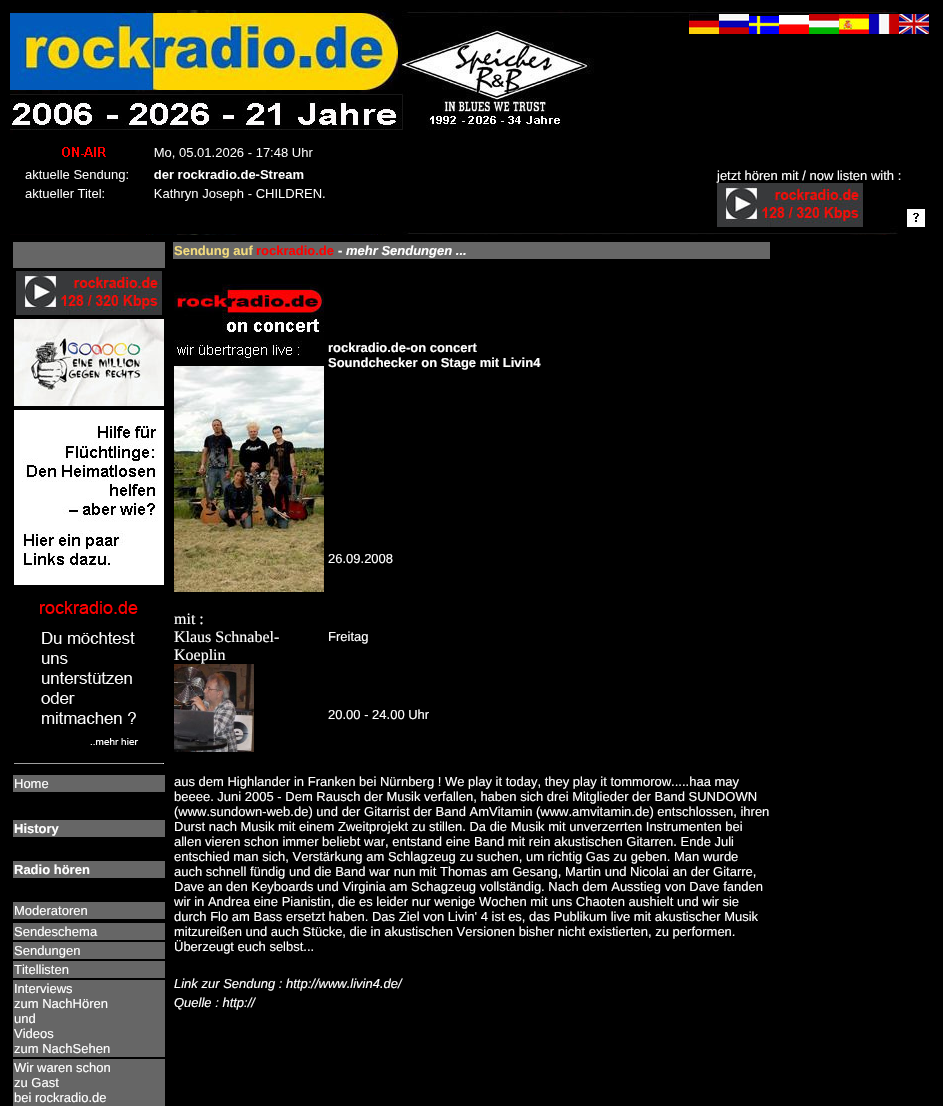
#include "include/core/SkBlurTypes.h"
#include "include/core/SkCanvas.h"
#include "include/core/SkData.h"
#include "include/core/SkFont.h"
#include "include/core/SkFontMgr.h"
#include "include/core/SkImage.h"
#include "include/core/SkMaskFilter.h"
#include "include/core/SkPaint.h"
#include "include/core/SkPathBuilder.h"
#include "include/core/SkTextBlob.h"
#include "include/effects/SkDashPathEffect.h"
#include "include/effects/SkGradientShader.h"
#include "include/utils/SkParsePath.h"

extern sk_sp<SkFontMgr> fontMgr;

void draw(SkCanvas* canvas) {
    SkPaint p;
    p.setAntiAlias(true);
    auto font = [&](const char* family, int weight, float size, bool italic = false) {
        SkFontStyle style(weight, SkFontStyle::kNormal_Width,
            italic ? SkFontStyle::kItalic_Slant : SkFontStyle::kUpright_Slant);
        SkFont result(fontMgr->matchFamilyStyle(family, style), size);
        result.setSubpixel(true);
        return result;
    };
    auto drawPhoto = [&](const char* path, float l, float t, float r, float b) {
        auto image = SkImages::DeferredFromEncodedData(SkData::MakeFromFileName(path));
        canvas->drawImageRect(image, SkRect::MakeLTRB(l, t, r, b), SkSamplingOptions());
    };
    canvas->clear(0xFF000000);
    drawPhoto("media/1.png", 10, 10, 898, 235);
    drawPhoto("media/2.png", 689, 14, 719, 34);
    drawPhoto("media/3.png", 719, 14, 749, 34);
    drawPhoto("media/4.png", 749, 16, 779, 34);
    drawPhoto("media/5.png", 779, 15, 809, 34);
    drawPhoto("media/6.png", 809, 14, 839, 34);
    drawPhoto("media/7.png", 839, 14, 869, 34);
    drawPhoto("media/8.png", 869, 14, 899, 34);
    drawPhoto("media/9.png", 899, 14, 929, 34);
    p.setColor(0xFF000000);
    canvas->drawRect(SkRect::MakeLTRB(13, 130, 410, 231), p);
    drawPhoto("media/10.png", 25, 147, 325, 201);
    auto font1 = font("Liberation Sans", 400, 13);
    p.setColor(0xFFFFFFFF);
    canvas->drawString("jetzt hören mit / now listen with :", 717, 180, font1, p);
    drawPhoto("media/11.png", 717, 183, 863, 227);
    p.setStyle(SkPaint::kStroke_Style);
    p.setStrokeWidth(1);
    canvas->drawRect(SkRect::MakeLTRB(907.5f, 209.5f, 924.5f, 226.5f), p);
    drawPhoto("media/12.png", 908, 210, 924, 226);
    p.setStyle(SkPaint::kFill_Style);
    p.setColor(0xFF666666);
    canvas->drawRect(SkRect::MakeLTRB(13, 242, 165, 268), p);
    drawPhoto("media/11.png", 16, 271, 162, 315);
    drawPhoto("media/13.png", 14, 319, 164, 406);
    drawPhoto("media/14.png", 14, 410, 164, 585);
    drawPhoto("media/15.png", 40, 601, 139, 745);
    {
        const struct { float l, t, r, b; SkColor color; } items[] = {
            {14, 763, 164, 764, 0xFF9F9F9F},
            {163, 763, 164, 764, 0xFFEEEEEE},
            {13, 775, 165, 792, 0xFF666666},
        };
        for (auto [l, t, r, b, color] : items) {
            p.setColor(color);
            canvas->drawRect(SkRect::MakeLTRB(l, t, r, b), p);
        }
    }
    p.setColor(0xFFFFFFFF);
    canvas->drawString("Home", 14, 788, font1, p);
    p.setColor(0xFF666666);
    canvas->drawRect(SkRect::MakeLTRB(13, 820, 165, 837), p);
    auto font2 = font("Liberation Sans", 700, 13);
    p.setColor(0xFFFFFFFF);
    canvas->drawString("History", 14, 833, font2, p);
    p.setColor(0xFF666666);
    canvas->drawRect(SkRect::MakeLTRB(13, 861, 165, 878), p);
    p.setColor(0xFFFFFFFF);
    canvas->drawString("Radio hören", 14, 874, font2, p);
    p.setColor(0xFF666666);
    canvas->drawRect(SkRect::MakeLTRB(13, 902, 165, 919), p);
    p.setColor(0xFFFFFFFF);
    canvas->drawString("Moderatoren", 14, 915, font1, p);
    p.setColor(0xFF666666);
    canvas->drawRect(SkRect::MakeLTRB(13, 923, 165, 940), p);
    p.setColor(0xFFFFFFFF);
    canvas->drawString("Sendeschema", 14, 936, font1, p);
    p.setColor(0xFF666666);
    canvas->drawRect(SkRect::MakeLTRB(13, 942, 165, 959), p);
    p.setColor(0xFFFFFFFF);
    canvas->drawString("Sendungen", 14, 955, font1, p);
    p.setColor(0xFF666666);
    canvas->drawRect(SkRect::MakeLTRB(13, 961, 165, 978), p);
    p.setColor(0xFFFFFFFF);
    canvas->drawString("Titellisten", 14, 974, font1, p);
    p.setColor(0xFF666666);
    canvas->drawRect(SkRect::MakeLTRB(13, 980, 165, 1057), p);
    p.setColor(0xFFFFFFFF);
    {
        const struct { const char* s; float x, y; } items[] = {
            {"Interviews", 14, 993},
            {"zum NachHören", 14, 1008},
            {"und", 14, 1023},
            {"Videos", 14, 1038},
            {"zum NachSehen", 14, 1053},
        };
        for (auto [s, x, y] : items) {
            canvas->drawString(s, x, y, font1, p);
        }
    }
    p.setColor(0xFF666666);
    canvas->drawRect(SkRect::MakeLTRB(13, 1059, 165, 1106), p);
    p.setColor(0xFFFFFFFF);
    {
        const struct { const char* s; float x, y; } items[] = {
            {"Wir waren schon", 14, 1072},
            {"zu Gast", 14, 1087},
            {"bei rockradio.de", 14, 1102},
        };
        for (auto [s, x, y] : items) {
            canvas->drawString(s, x, y, font1, p);
        }
    }
    p.setColor(0xFF666666);
    canvas->drawRect(SkRect::MakeLTRB(173, 242, 770, 259), p);
    p.setColor(0xFFF3DB7D);
    canvas->drawString("Sendung auf", 174, 255, font2, p);
    p.setColor(0xFFFF0000);
    canvas->drawString("rockradio.de", 256, 255, font2, p);
    p.setColor(0xFFFFFFFF);
    canvas->drawString("-", 338, 255, font2, p);
    auto font3 = font("Liberation Sans", 700, 13, true);
    canvas->drawString("mehr Sendungen ...", 346, 255, font3, p);
    canvas->drawString("rockradio.de-on concert", 328, 352, font2, p);
    canvas->drawString("Soundchecker on Stage mit Livin4", 328, 367, font2, p);
    drawPhoto("media/16.png", 174, 284, 324, 364);
    drawPhoto("media/17.png", 174, 366, 324, 592);
    auto font4 = font("Liberation Serif", 400, 16);
    {
        const struct { const char* s; float x, y; } items[] = {
            {"mit :", 174, 624},
            {"Klaus Schnabel-", 174, 642},
            {"Koeplin", 174, 660},
        };
        for (auto [s, x, y] : items) {
            canvas->drawString(s, x, y, font4, p);
        }
    }
    drawPhoto("media/18.png", 174, 664, 254, 752);
    {
        const struct { const char* s; float x, y; } items[] = {
            {"26.09.2008", 328, 563},
            {"Freitag", 328, 641},
            {"20.00 - 24.00 Uhr", 328, 719},
            {"aus dem Highlander in Franken bei Nürnberg ! We play it today, they play it tommorow.....haa may", 174, 786},
            {"beeee. Juni 2005 - Dem Rausch der Musik verfallen, haben sich drei Mitglieder der Band SUNDOWN", 174, 801},
            {"(www.sundown-web.de) und der Gitarrist der Band AmVitamin (www.amvitamin.de) entschlossen, ihren", 174, 816},
            {"Durst nach Musik mit einem Zweitprojekt zu stillen. Da die Musik mit unverzerrten Instrumenten bei", 174, 831},
            {"allen vieren schon immer beliebt war, entstand eine Band mit rein akustischen Gitarren. Ende Juli", 174, 846},
            {"entschied man sich, Verstärkung am Schlagzeug zu suchen, um richtig Gas zu geben. Man wurde", 174, 861},
            {"auch schnell fündig und die Band war nun mit Thomas am Gesang, Martin und Nicolai an der Gitarre,", 174, 876},
            {"Dave an den Keyboards und Virginia am Schagzeug vollständig. Nach dem Ausstieg von Dave fanden", 174, 891},
            {"wir in Andrea eine Pianistin, die es leider nur wenige Wochen mit uns Chaoten aushielt und wir sie", 174, 906},
            {"durch Flo am Bass ersetzt haben. Das Ziel von Livin' 4 ist es, das Publikum live mit akustischer Musik", 174, 921},
            {"mitzureißen und auch Stücke, die in akustischen Versionen bisher nicht existierten, zu performen.", 174, 936},
            {"Überzeugt euch selbst...", 174, 951},
        };
        for (auto [s, x, y] : items) {
            canvas->drawString(s, x, y, font1, p);
        }
    }
    auto font5 = font("Liberation Sans", 400, 13, true);
    canvas->drawString("Link zur Sendung : http://www.livin4.de/", 174, 988, font5, p);
    canvas->drawString("Quelle : http://", 174, 1007, font5, p);
}
